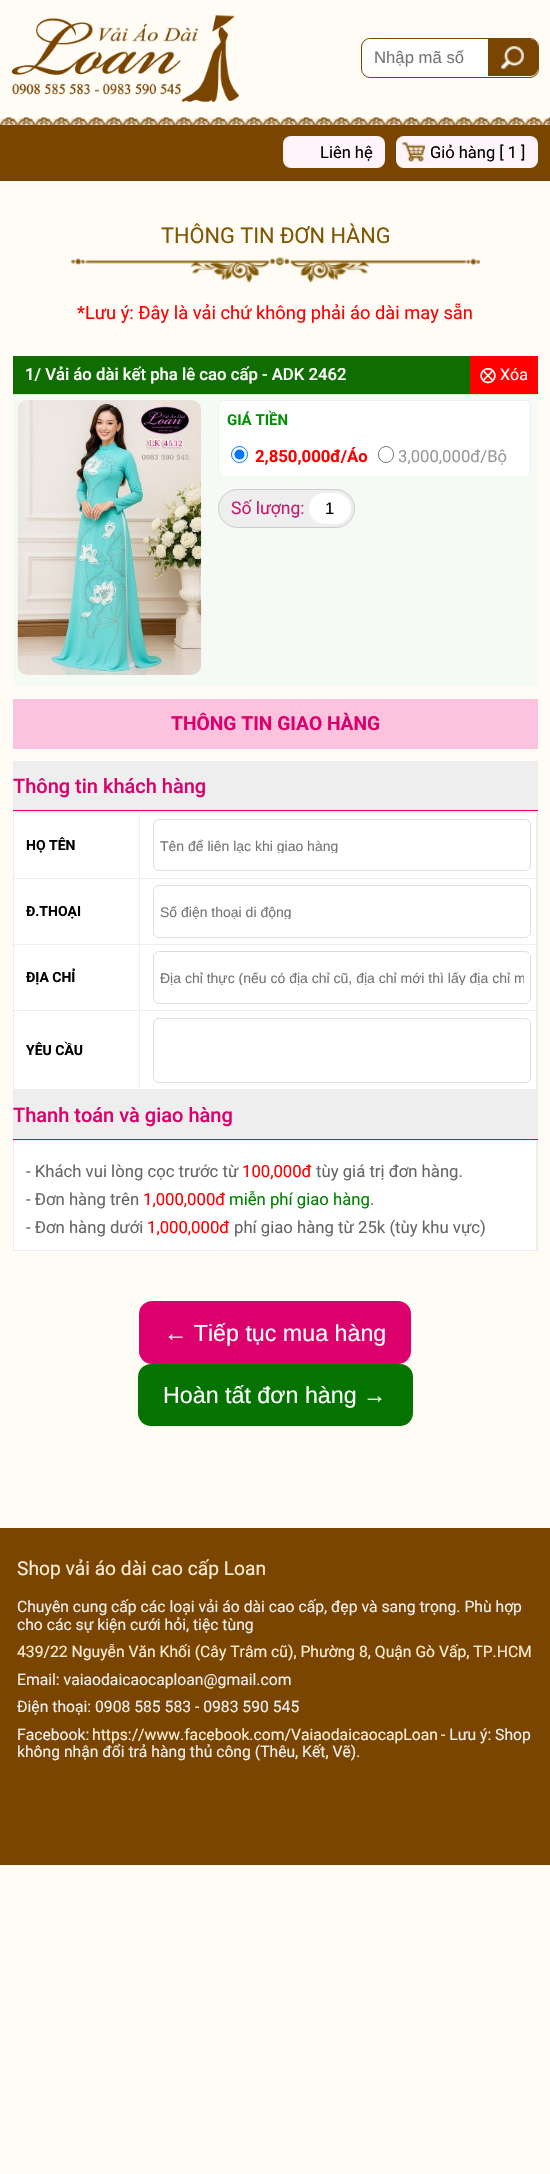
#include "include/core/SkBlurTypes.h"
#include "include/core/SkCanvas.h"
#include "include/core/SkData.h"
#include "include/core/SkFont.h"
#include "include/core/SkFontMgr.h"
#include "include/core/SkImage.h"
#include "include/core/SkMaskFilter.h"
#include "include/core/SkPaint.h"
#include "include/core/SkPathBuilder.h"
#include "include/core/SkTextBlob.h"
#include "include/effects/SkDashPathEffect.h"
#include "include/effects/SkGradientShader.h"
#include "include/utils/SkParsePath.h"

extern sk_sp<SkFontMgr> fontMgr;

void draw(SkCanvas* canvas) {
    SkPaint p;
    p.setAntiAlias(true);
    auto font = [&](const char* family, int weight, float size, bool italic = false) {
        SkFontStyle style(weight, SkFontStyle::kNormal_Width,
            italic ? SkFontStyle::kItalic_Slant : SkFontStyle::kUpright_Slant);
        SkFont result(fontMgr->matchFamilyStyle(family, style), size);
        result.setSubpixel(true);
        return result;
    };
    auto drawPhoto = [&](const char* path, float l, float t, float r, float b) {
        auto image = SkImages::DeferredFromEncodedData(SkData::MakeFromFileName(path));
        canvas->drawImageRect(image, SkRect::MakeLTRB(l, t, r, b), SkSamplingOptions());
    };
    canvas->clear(0xFFFFFCF5);
    drawPhoto("media/1.png", 11, 15, 239, 102);
    p.setStyle(SkPaint::kStroke_Style);
    p.setStrokeWidth(1);
    p.setColor(0xFF794500);
    canvas->drawRoundRect(SkRect::MakeLTRB(361.5f, 38.5f, 538.5f, 77.5f), 8.5f, 8.5f, p);
    p.setStyle(SkPaint::kFill_Style);
    p.setColor(0xFFFFFFFF);
    canvas->drawPath(SkPathBuilder().moveTo(371, 39).lineTo(488, 39).lineTo(488, 76).lineTo(371, 76).cubicTo(366.5f, 76, 363, 72.5f, 363, 68).lineTo(363, 47).cubicTo(363, 42.5f, 366.5f, 39, 371, 39).close().detach(), p);
    auto font1 = font("Liberation Sans", 400, 16.7f);
    p.setColor(0xFF757575);
    canvas->drawString("Nhập mã số", 374, 63, font1, p);
    p.setColor(0xFF794500);
    canvas->drawPath(SkPathBuilder().moveTo(488, 39).lineTo(530, 39).cubicTo(534.5f, 39, 538, 42.5f, 538, 47).lineTo(538, 68).cubicTo(538, 72.5f, 534.5f, 76, 530, 76).lineTo(488, 76).close().detach(), p);
    drawPhoto("media/2.png", 501, 46, 524, 69);
    canvas->drawRect(SkRect::MakeLTRB(0, 125, 550, 181), p);
    drawPhoto("media/3.png", 0, 117, 550, 125);
    p.setColor(0xFFFFF4F9);
    canvas->drawRoundRect(SkRect::MakeLTRB(283, 136, 385, 168), 8, 8, p);
    auto font2 = font("Roboto", 400, 16.5f);
    p.setColor(0xFF000000);
    canvas->drawString("Liên hệ", 320, 158, font2, p);
    p.setColor(0xFFFFF4F9);
    canvas->drawRoundRect(SkRect::MakeLTRB(396, 136, 538, 168), 8, 8, p);
    drawPhoto("media/4.png", 402, 142, 425, 162);
    p.setColor(0xFF000000);
    canvas->drawString("Giỏ hàng [ 1 ]", 430, 158, font2, p);
    drawPhoto("media/5.png", 71, 257, 480, 283);
    auto font3 = font("Roboto", 400, 21.75f);
    p.setColor(0xFF815601);
    canvas->drawString("THÔNG TIN ĐƠN HÀNG", 161, 243, font3, p);
    auto font4 = font("Roboto", 400, 18.3f);
    p.setColor(0xFFFF0000);
    canvas->drawString("*Lưu ý: Đây là vải chứ không phải áo dài may sẵn", 77, 319, font4, p);
    {
        const struct { float l, t, r, b; SkColor color; } items[] = {
            {13, 395, 538, 686, 0xFFF5FAF5},
            {13, 356, 470, 394, 0xFF106D01},
            {13, 394, 538, 395, 0xFFD3F0C7},
        };
        for (auto [l, t, r, b, color] : items) {
            p.setColor(color);
            canvas->drawRect(SkRect::MakeLTRB(l, t, r, b), p);
        }
    }
    auto font5 = font("Roboto", 500, 16.7f);
    p.setColor(0xFFFFFFFF);
    canvas->drawString("1/ Vải áo dài kết pha lê cao cấp - ADK 2462", 25, 380, font5, p);
    p.setColor(0xFFFF0000);
    canvas->drawRect(SkRect::MakeLTRB(470, 356, 538, 394), p);
    auto font6 = font("DejaVu Sans", 400, 16);
    p.setColor(0xFFFFFFFF);
    canvas->drawString("⨂", 480, 380, font6, p);
    auto font7 = font("Roboto", 400, 16);
    canvas->drawString("Xóa", 500, 380, font7, p);
    drawPhoto("media/6.png", 17, 400, 202, 675);
    canvas->drawRoundRect(SkRect::MakeLTRB(218, 400, 531, 476), 6, 6, p);
    p.setColor(0xFFEEEEEE);
    canvas->drawPath(SkPathBuilder(SkPathFillType::kEvenOdd).moveTo(224, 400).lineTo(525, 400).cubicTo(528, 400, 531, 403, 531, 406).lineTo(531, 470).cubicTo(531, 473, 528, 476, 525, 476).lineTo(224, 476).cubicTo(220, 476, 218, 473, 218, 470).lineTo(218, 406).cubicTo(218, 403, 220, 400, 224, 400).close().moveTo(224, 401).lineTo(525, 401).cubicTo(528, 401, 530, 403, 530, 406).lineTo(530, 470).cubicTo(530, 473, 528, 476, 525, 476).lineTo(224, 476).cubicTo(221, 476, 219, 473, 219, 470).lineTo(219, 406).cubicTo(219, 403, 221, 401, 224, 401).close().detach(), p);
    auto font8 = font("Roboto", 700, 15);
    p.setColor(0xFF009203);
    canvas->drawString("GIÁ TIỀN", 227, 425, font8, p);
    p.setStyle(SkPaint::kStroke_Style);
    p.setColor(0xFF0075FF);
    canvas->drawCircle(239.5f, 454.5f, 8, p);
    p.setStyle(SkPaint::kFill_Style);
    canvas->drawCircle(239.5f, 454.5f, 5, p);
    auto font9 = font("Roboto", 700, 16.7f);
    p.setColor(0xFFFF0000);
    canvas->drawString("2,850,000đ/Áo", 255, 462, font9, p);
    p.setStyle(SkPaint::kStroke_Style);
    p.setColor(0xFF767676);
    canvas->drawRoundRect(SkRect::MakeLTRB(378.5f, 446.5f, 393.5f, 462.5f), 7.5f, 7.5f, p);
    auto font10 = font("Roboto", 400, 16.7f);
    p.setStyle(SkPaint::kFill_Style);
    p.setColor(0xFF999999);
    canvas->drawString("3,000,000đ/Bộ", 398, 462, font10, p);
    p.setColor(0xFFEEEEEE);
    canvas->drawRoundRect(SkRect::MakeLTRB(218.5f, 489.5f, 354.5f, 527.5f), 19, 19, p);
    p.setStyle(SkPaint::kStroke_Style);
    p.setColor(0xFFCCCCCC);
    canvas->drawRoundRect(SkRect::MakeLTRB(218.5f, 489.5f, 354.5f, 527.5f), 19, 19, p);
    auto font11 = font("Roboto", 400, 17.5f);
    p.setStyle(SkPaint::kFill_Style);
    p.setColor(0xFFC61A6F);
    canvas->drawString("Số lượng:", 231, 514, font11, p);
    p.setColor(0xFFFFFFFF);
    canvas->drawRoundRect(SkRect::MakeLTRB(309, 493, 351, 524), 15.5f, 15.5f, p);
    p.setColor(0xFF000000);
    canvas->drawString("1", 325, 514, font1, p);
    p.setColor(0xFFFCC3DF);
    canvas->drawRect(SkRect::MakeLTRB(13, 699, 538, 749), p);
    auto font12 = font("Roboto", 700, 19.25f);
    p.setColor(0xFFDC006D);
    canvas->drawString("THÔNG TIN GIAO HÀNG", 171, 730, font12, p);
    p.setColor(0xFFEEEEEE);
    canvas->drawRect(SkRect::MakeLTRB(13, 761, 538, 810), p);
    p.setColor(0xFFDC006D);
    canvas->drawRect(SkRect::MakeLTRB(13, 810, 538, 811), p);
    auto font13 = font("Roboto", 500, 20);
    canvas->drawString("Thông tin khách hàng", 13, 793, font13, p);
    p.setColor(0xFFEEEEEE);
    canvas->drawRect(SkRect::MakeLTRB(13, 811, 538, 1139), p);
    p.setColor(0xFFFFFFFF);
    canvas->drawRect(SkRect::MakeLTRB(14, 813, 139, 878), p);
    auto font14 = font("Roboto", 700, 14);
    p.setColor(0xFF000000);
    canvas->drawString("HỌ TÊN", 26, 850, font14, p);
    p.setColor(0xFFFFFFFF);
    canvas->drawRect(SkRect::MakeLTRB(140, 813, 536, 878), p);
    p.setStyle(SkPaint::kStroke_Style);
    p.setColor(0xFFDEDEDE);
    canvas->drawRoundRect(SkRect::MakeLTRB(153.5f, 819.5f, 530.5f, 870.5f), 5.5f, 5.5f, p);
    canvas->save();
    canvas->clipRect(SkRect::MakeLTRB(160, 838, 524, 853));
    auto font15 = font("Liberation Sans", 400, 14);
    p.setStyle(SkPaint::kFill_Style);
    p.setColor(0xFF757575);
    canvas->drawString("Tên để liên lạc khi giao hàng", 160, 851, font15, p);
    canvas->restore();
    p.setColor(0xFFFFFFFF);
    canvas->drawRect(SkRect::MakeLTRB(14, 879, 139, 944), p);
    p.setColor(0xFF000000);
    canvas->drawString("Đ.THOẠI", 26, 916, font14, p);
    p.setColor(0xFFFFFFFF);
    canvas->drawRect(SkRect::MakeLTRB(140, 879, 536, 944), p);
    p.setStyle(SkPaint::kStroke_Style);
    p.setColor(0xFFDEDEDE);
    canvas->drawRoundRect(SkRect::MakeLTRB(153.5f, 885.5f, 530.5f, 937.5f), 5.5f, 5.5f, p);
    canvas->save();
    canvas->clipRect(SkRect::MakeLTRB(160, 904, 524, 919));
    p.setStyle(SkPaint::kFill_Style);
    p.setColor(0xFF757575);
    canvas->drawString("Số điện thoại di động", 160, 917, font15, p);
    canvas->restore();
    p.setColor(0xFFFFFFFF);
    canvas->drawRect(SkRect::MakeLTRB(14, 945, 139, 1010), p);
    p.setColor(0xFF000000);
    canvas->drawString("ĐỊA CHỈ", 26, 982, font14, p);
    p.setColor(0xFFFFFFFF);
    canvas->drawRect(SkRect::MakeLTRB(140, 945, 536, 1010), p);
    p.setStyle(SkPaint::kStroke_Style);
    p.setColor(0xFFDEDEDE);
    canvas->drawRoundRect(SkRect::MakeLTRB(153.5f, 951.5f, 530.5f, 1003.5f), 5.5f, 5.5f, p);
    canvas->save();
    canvas->clipRect(SkRect::MakeLTRB(160, 970, 524, 985));
    p.setStyle(SkPaint::kFill_Style);
    p.setColor(0xFF757575);
    canvas->drawString("Địa chỉ thực (nếu có địa chỉ cũ, địa chỉ mới thì lấy địa chỉ m", 160, 983, font15, p);
    canvas->restore();
    p.setColor(0xFFFFFFFF);
    canvas->drawRect(SkRect::MakeLTRB(14, 1011, 139, 1089), p);
    p.setColor(0xFF000000);
    canvas->drawString("YÊU CẦU", 26, 1055, font14, p);
    p.setColor(0xFFFFFFFF);
    canvas->drawRect(SkRect::MakeLTRB(140, 1011, 536, 1089), p);
    p.setStyle(SkPaint::kStroke_Style);
    p.setColor(0xFFDEDEDE);
    canvas->drawRoundRect(SkRect::MakeLTRB(153.5f, 1018.5f, 530.5f, 1082.5f), 5.5f, 5.5f, p);
    p.setStyle(SkPaint::kFill_Style);
    p.setColor(0xFFDC006D);
    canvas->drawRect(SkRect::MakeLTRB(13, 1139, 538, 1140), p);
    canvas->drawString("Thanh toán và giao hàng", 13, 1122, font13, p);
    p.setColor(0xFFEEEEEE);
    canvas->drawRect(SkRect::MakeLTRB(13, 1140, 538, 1251), p);
    p.setColor(0xFFFFFFFF);
    canvas->drawRect(SkRect::MakeLTRB(14, 1141, 536, 1250), p);
    p.setColor(0xFF666666);
    canvas->drawString("- Khách vui lòng cọc trước từ", 26, 1177, font10, p);
    p.setColor(0xFFFF0000);
    canvas->drawString("100,000đ", 242, 1177, font10, p);
    p.setColor(0xFF666666);
    canvas->drawString("tùy giá trị đơn hàng.", 316, 1177, font10, p);
    canvas->drawString("- Đơn hàng trên", 26, 1205, font10, p);
    p.setColor(0xFFFF0000);
    canvas->drawString("1,000,000đ", 143, 1205, font10, p);
    p.setColor(0xFF008000);
    canvas->drawString("miễn phí giao hàng", 229, 1205, font10, p);
    p.setColor(0xFF666666);
    canvas->drawString(".", 370, 1205, font10, p);
    canvas->drawString("- Đơn hàng dưới", 26, 1233, font10, p);
    p.setColor(0xFFFF0000);
    canvas->drawString("1,000,000đ", 147, 1233, font10, p);
    p.setColor(0xFF666666);
    canvas->drawString("phí giao hàng từ 25k (tùy khu vực)", 234, 1233, font10, p);
    p.setColor(0xFFDC006D);
    canvas->drawRoundRect(SkRect::MakeLTRB(139, 1301, 411, 1364), 13, 13, p);
    auto font16 = font("Liberation Sans", 400, 23.25f);
    p.setColor(0xFFFFFFFF);
    canvas->drawString("← Tiếp tục mua hàng", 164, 1341, font16, p);
    p.setColor(0xFF057300);
    canvas->drawRoundRect(SkRect::MakeLTRB(138, 1364, 413, 1426), 13, 13, p);
    p.setColor(0xFFFFFFFF);
    canvas->drawString("Hoàn tất đơn hàng →", 163, 1403, font16, p);
    p.setColor(0xFF794500);
    canvas->drawRect(SkRect::MakeLTRB(0, 1528, 550, 1865), p);
    auto font17 = font("Roboto", 400, 19.2f);
    p.setColor(0xFFFDEDD7);
    canvas->drawString("Shop vải áo dài cao cấp Loan", 17, 1575, font17, p);
    auto font18 = font("Roboto", 400, 15.7f);
    p.setColor(0xFFEEEEEE);
    canvas->drawString("Chuyên cung cấp các loại vải áo dài cao cấp, đẹp và sang trọng. Phù hợp", 17, 1612, font18, p);
    canvas->drawString("cho các sự kiện cưới hỏi, tiệc tùng", 17, 1630, font18, p);
    p.setColor(0xFFFDEDD7);
    canvas->drawString("439/22 Nguyễn Văn Khối (Cây Trâm cũ), Phường 8, Quận Gò Vấp, TP.HCM", 17, 1657, font18, p);
    p.setColor(0xFFEEEEEE);
    {
        const struct { const char* s; float x, y; } items[] = {
            {"Email: vaiaodaicaocaploan@gmail.com", 17, 1685},
            {"Điện thoại: 0908 585 583 - 0983 590 545", 17, 1712},
            {"Facebook:", 17, 1740},
        };
        for (auto [s, x, y] : items) {
            canvas->drawString(s, x, y, font18, p);
        }
    }
    p.setColor(0xFFFDEDD7);
    canvas->drawString("https://www.facebook.com/VaiaodaicaocapLoan", 92, 1740, font18, p);
    p.setColor(0xFFEEEEEE);
    canvas->drawString("- Lưu ý: Shop", 441, 1740, font18, p);
    canvas->drawString("không nhận đổi trả hàng thủ công (Thêu, Kết, Vẽ).", 17, 1757, font18, p);
}
